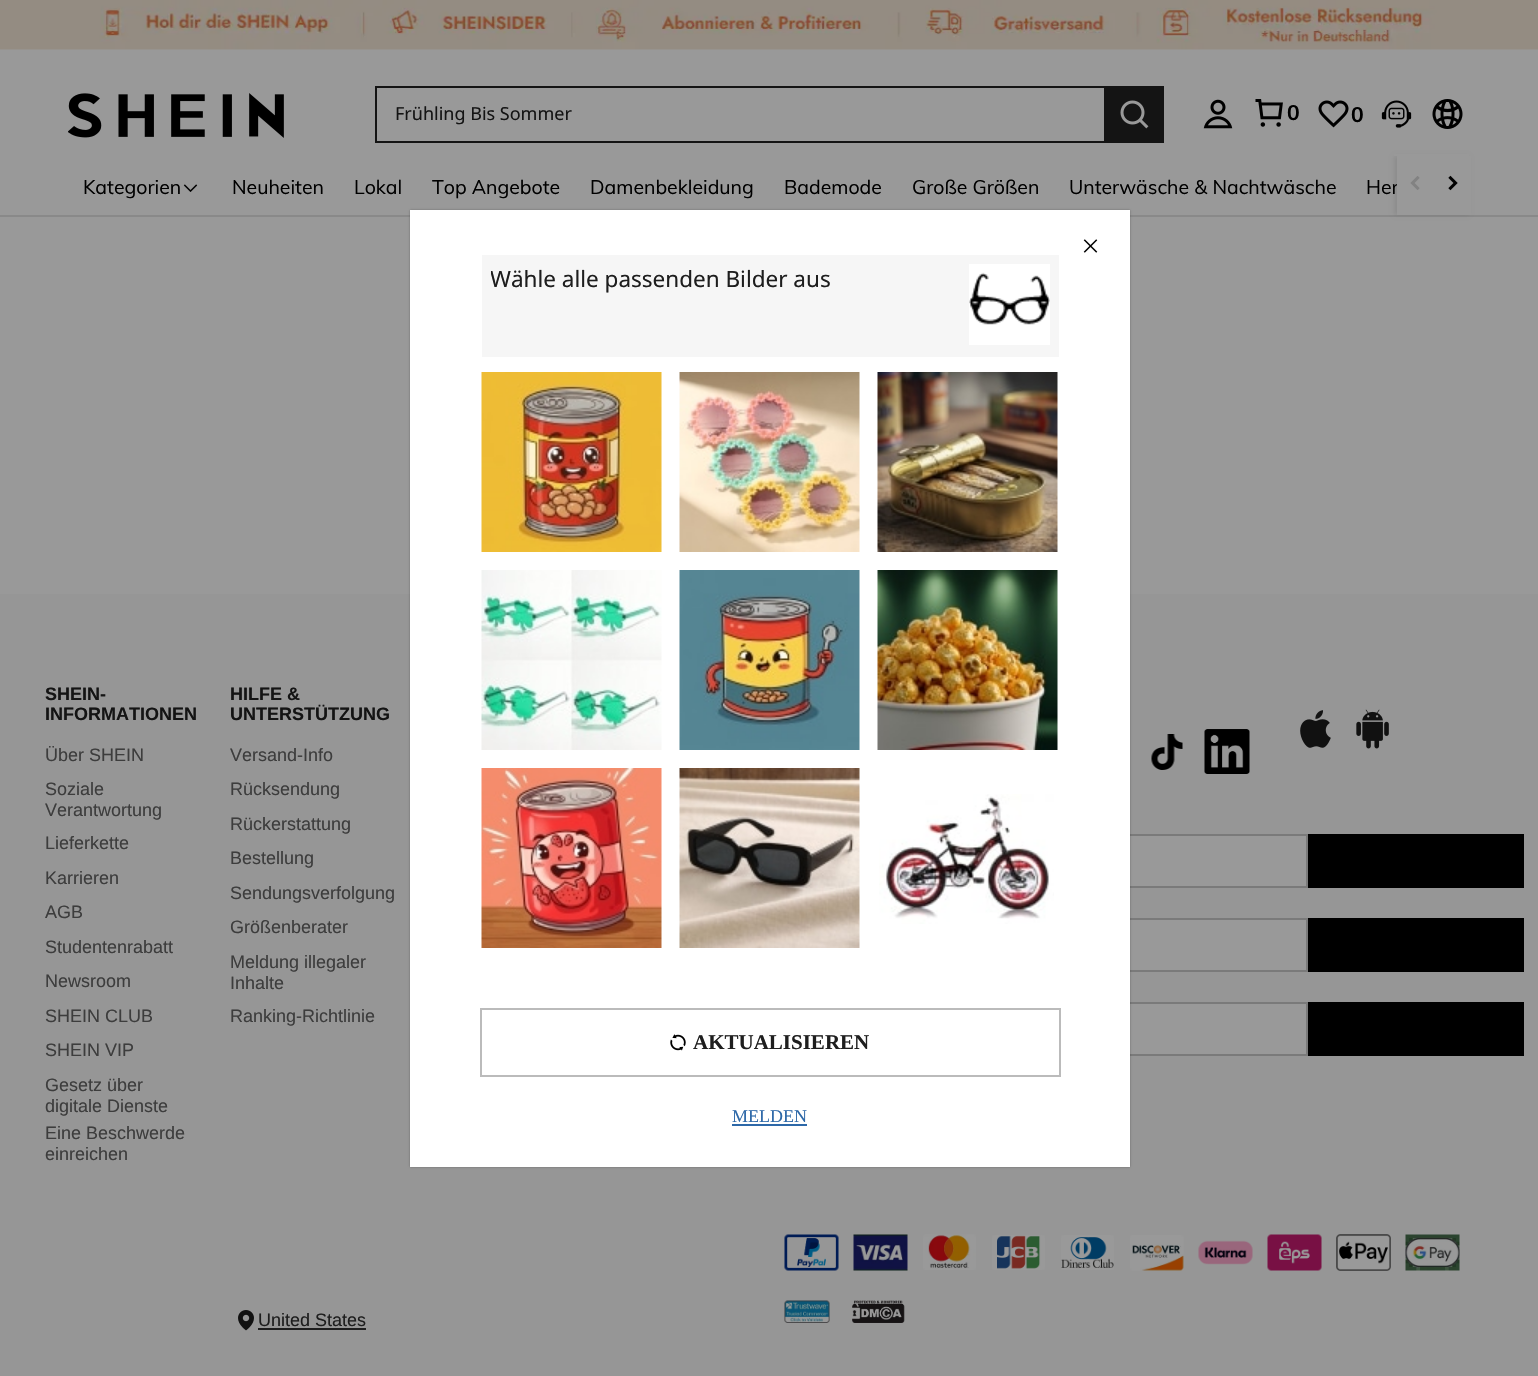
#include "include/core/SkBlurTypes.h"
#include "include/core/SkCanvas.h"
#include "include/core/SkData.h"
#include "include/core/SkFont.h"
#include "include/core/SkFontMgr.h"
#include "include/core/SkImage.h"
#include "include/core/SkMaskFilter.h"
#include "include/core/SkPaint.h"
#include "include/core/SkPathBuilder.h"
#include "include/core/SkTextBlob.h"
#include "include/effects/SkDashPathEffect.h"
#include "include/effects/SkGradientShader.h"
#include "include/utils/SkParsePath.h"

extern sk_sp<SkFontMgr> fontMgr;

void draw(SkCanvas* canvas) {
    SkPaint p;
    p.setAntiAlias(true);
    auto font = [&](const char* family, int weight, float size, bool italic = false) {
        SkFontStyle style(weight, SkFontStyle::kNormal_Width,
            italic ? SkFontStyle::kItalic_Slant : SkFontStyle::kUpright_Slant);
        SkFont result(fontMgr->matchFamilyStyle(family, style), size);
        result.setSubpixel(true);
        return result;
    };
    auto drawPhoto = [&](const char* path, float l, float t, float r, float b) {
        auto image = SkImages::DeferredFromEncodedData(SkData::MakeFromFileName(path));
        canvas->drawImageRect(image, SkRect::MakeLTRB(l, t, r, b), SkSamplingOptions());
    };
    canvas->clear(0xFF999999);
    drawPhoto("media/1.png", 0, 0, 1538, 50);
    p.setColor(0xFF898989);
    canvas->drawRect(SkRect::MakeLTRB(0, 215, 1538, 217), p);
    p.setColor(0x14000000);
    p.setMaskFilter(SkMaskFilter::MakeBlur(kNormal_SkBlurStyle, 2));
    canvas->drawRect(SkRect::MakeLTRB(1394, 156, 1469, 215), p);
    p.setMaskFilter(nullptr);
    p.setColor(0xFF999999);
    canvas->drawRect(SkRect::MakeLTRB(1394, 154, 1469, 156), p);
    drawPhoto("media/2.png", 68, 93, 284, 138);
    {
        const struct { float l, t, r, b; SkColor color; } items[] = {
            {375, 86, 1104, 88, 0xFF141414},
            {375, 141, 1104, 143, 0xFF141414},
            {375, 86, 377, 143, 0xFF141414},
        };
        for (auto [l, t, r, b, color] : items) {
            p.setColor(color);
            canvas->drawRect(SkRect::MakeLTRB(l, t, r, b), p);
        }
    }
    auto font1 = font("Noto Sans", 400, 18);
    canvas->drawString("Frühling Bis Sommer", 395, 120, font1, p);
    canvas->drawRect(SkRect::MakeLTRB(1104, 86, 1164, 143), p);
    drawPhoto("media/3.png", 1120, 100, 1149, 129);
    drawPhoto("media/4.png", 1203, 99, 1233, 129);
    drawPhoto("media/5.png", 1255, 99, 1283, 127);
    auto font2 = font("Muli", 700, 21);
    p.setColor(0xFF000000);
    canvas->drawString("0", 1287, 120, font2, p);
    drawPhoto("media/6.png", 1318, 100, 1349, 128);
    canvas->drawString("0", 1351, 122, font2, p);
    drawPhoto("media/7.png", 1381, 100, 1412, 128);
    drawPhoto("media/8.png", 1432, 99, 1463, 129);
    auto font3 = font("Muli", 400, 19.5f);
    canvas->drawString("Kategorien", 83, 194, font3, p);
    drawPhoto("media/9.png", 183, 184, 198, 192);
    {
        const struct { const char* s; float x, y; } items[] = {
            {"Neuheiten", 232, 194},
            {"Lokal", 354, 194},
            {"Top Angebote", 432, 194},
            {"Damenbekleidung", 590, 194},
            {"Bademode", 784, 194},
            {"Große Größen", 912, 194},
            {"Unterwäsche & Nachtwäsche", 1069, 194},
            {"Her", 1366, 194},
        };
        for (auto [s, x, y] : items) {
            canvas->drawString(s, x, y, font3, p);
        }
    }
    p.setColor(0xFF999999);
    canvas->drawRect(SkRect::MakeLTRB(1397, 156, 1471, 215), p);
    drawPhoto("media/10.png", 1410, 176, 1420, 190);
    drawPhoto("media/11.png", 1448, 175, 1458, 191);
    p.setColor(0xFF969696);
    canvas->drawRect(SkRect::MakeLTRB(0, 594, 1538, 1376), p);
    auto font4 = font("Liberation Sans", 700, 18);
    p.setColor(0xFF141414);
    canvas->drawString("SHEIN-", 45, 700, font4, p);
    canvas->drawString("INFORMATIONEN", 45, 720, font4, p);
    auto font5 = font("Liberation Sans", 400, 18);
    p.setColor(0xFF3D3D3D);
    {
        const struct { const char* s; float x, y; } items[] = {
            {"Über SHEIN", 45, 761},
            {"Soziale", 45, 795},
            {"Verantwortung", 45, 816},
            {"Lieferkette", 45, 849},
            {"Karrieren", 45, 884},
            {"AGB", 45, 918},
            {"Studentenrabatt", 45, 953},
            {"Newsroom", 45, 987},
            {"SHEIN CLUB", 45, 1022},
            {"SHEIN VIP", 45, 1056},
            {"Gesetz über", 45, 1091},
            {"digitale Dienste", 45, 1112},
            {"Eine Beschwerde", 45, 1139},
            {"einreichen", 45, 1160},
        };
        for (auto [s, x, y] : items) {
            canvas->drawString(s, x, y, font5, p);
        }
    }
    p.setColor(0xFF141414);
    canvas->drawString("HILFE &", 230, 700, font4, p);
    canvas->drawString("UNTERSTÜTZUNG", 230, 720, font4, p);
    p.setColor(0xFF3D3D3D);
    {
        const struct { const char* s; float x, y; } items[] = {
            {"Versand-Info", 230, 761},
            {"Rücksendung", 230, 795},
            {"Rückerstattung", 230, 830},
            {"Bestellung", 230, 864},
            {"Sendungsverfolgung", 230, 899},
            {"Größenberater", 230, 933},
            {"Meldung illegaler", 230, 968},
            {"Inhalte", 230, 989},
            {"Ranking-Richtlinie", 230, 1022},
        };
        for (auto [s, x, y] : items) {
            canvas->drawString(s, x, y, font5, p);
        }
    }
    drawPhoto("media/12.png", 1151, 734, 1183, 770);
    drawPhoto("media/13.png", 1204, 729, 1250, 774);
    drawPhoto("media/14.png", 1300, 710, 1331, 748);
    drawPhoto("media/15.png", 1356, 709, 1389, 749);
    p.setColor(0xFF999999);
    canvas->drawRect(SkRect::MakeLTRB(1130, 836, 1306, 886), p);
    p.setStyle(SkPaint::kStroke_Style);
    p.setStrokeWidth(2);
    p.setColor(0xFF7A7A7A);
    canvas->drawRect(SkRect::MakeLTRB(786, 835, 1307, 887), p);
    p.setStyle(SkPaint::kFill_Style);
    p.setColor(0xFF000000);
    canvas->drawRect(SkRect::MakeLTRB(1308, 834, 1524, 888), p);
    p.setColor(0xFF999999);
    canvas->drawRect(SkRect::MakeLTRB(1130, 920, 1306, 970), p);
    p.setStyle(SkPaint::kStroke_Style);
    p.setColor(0xFF7A7A7A);
    canvas->drawRect(SkRect::MakeLTRB(906, 919, 1307, 971), p);
    p.setStyle(SkPaint::kFill_Style);
    p.setColor(0xFF000000);
    canvas->drawRect(SkRect::MakeLTRB(1308, 918, 1524, 972), p);
    p.setColor(0xFF999999);
    canvas->drawRect(SkRect::MakeLTRB(1130, 1004, 1306, 1054), p);
    p.setStyle(SkPaint::kStroke_Style);
    p.setColor(0xFF7A7A7A);
    canvas->drawRect(SkRect::MakeLTRB(906, 1003, 1307, 1055), p);
    p.setStyle(SkPaint::kFill_Style);
    p.setColor(0xFF000000);
    canvas->drawRect(SkRect::MakeLTRB(1308, 1002, 1524, 1056), p);
    drawPhoto("media/16.png", 784, 1234, 839, 1271);
    drawPhoto("media/17.png", 853, 1234, 908, 1271);
    drawPhoto("media/18.png", 923, 1234, 976, 1270);
    drawPhoto("media/19.png", 992, 1235, 1045, 1270);
    drawPhoto("media/20.png", 1061, 1235, 1114, 1270);
    drawPhoto("media/21.png", 1130, 1235, 1184, 1271);
    drawPhoto("media/22.png", 1198, 1240, 1253, 1265);
    drawPhoto("media/23.png", 1267, 1234, 1322, 1271);
    drawPhoto("media/24.png", 1336, 1234, 1391, 1271);
    drawPhoto("media/25.png", 1405, 1234, 1460, 1271);
    drawPhoto("media/26.png", 238, 1310, 254, 1331);
    p.setColor(0xFF1E1E1E);
    canvas->drawString("United States", 258, 1326, font5, p);
    canvas->drawRect(SkRect::MakeLTRB(258, 1328, 366, 1330), p);
    drawPhoto("media/27.png", 784, 1300, 830, 1323);
    drawPhoto("media/28.png", 852, 1300, 905, 1323);
    p.setColor(0x4D000000);
    p.setMaskFilter(SkMaskFilter::MakeBlur(kNormal_SkBlurStyle, 1));
    canvas->drawRect(SkRect::MakeLTRB(410, 210, 1130, 1167), p);
    p.setMaskFilter(nullptr);
    p.setColor(0xFFFFFFFF);
    canvas->drawRect(SkRect::MakeLTRB(410, 210, 1130, 1167), p);
    drawPhoto("media/29.png", 1083, 239, 1098, 253);
    p.setColor(0xFFF6F6F6);
    canvas->drawRect(SkRect::MakeLTRB(482, 255, 1059, 357), p);
    canvas->save();
    canvas->clipRect(SkRect::MakeLTRB(491, 264, 941, 348));
    auto font6 = font("Noto Sans", 400, 22.5f);
    p.setColor(0xFF1E1E1E);
    canvas->drawString("Wähle alle passenden Bilder aus", 490, 287, font6, p);
    canvas->restore();
    p.setColor(0xFFFFFFFF);
    canvas->drawRect(SkRect::MakeLTRB(969, 264, 1050, 345), p);
    drawPhoto("media/30.png", 969, 272, 1050, 325);
    drawPhoto("media/31.png", 481, 372, 662, 552);
    drawPhoto("media/32.png", 679, 372, 860, 552);
    drawPhoto("media/33.png", 877, 372, 1058, 552);
    drawPhoto("media/34.png", 481, 570, 662, 750);
    drawPhoto("media/35.png", 679, 570, 860, 750);
    drawPhoto("media/36.png", 877, 570, 1058, 750);
    drawPhoto("media/37.png", 481, 768, 662, 948);
    drawPhoto("media/38.png", 679, 768, 860, 948);
    drawPhoto("media/39.png", 879, 794, 1054, 924);
    p.setStyle(SkPaint::kStroke_Style);
    p.setColor(0xFFBBBBBB);
    canvas->drawRect(SkRect::MakeLTRB(481, 1009, 1060, 1076), p);
    drawPhoto("media/40.png", 670, 1034, 686, 1051);
    auto font7 = font("Liberation Serif", 700, 21);
    p.setStyle(SkPaint::kFill_Style);
    p.setColor(0xFF1E1E1E);
    canvas->drawString("AKTUALISIEREN", 693, 1049, font7, p);
    auto font8 = font("Liberation Serif", 400, 18);
    p.setColor(0xFF2D68A8);
    canvas->drawString("MELDEN", 732, 1122, font8, p);
    canvas->drawRect(SkRect::MakeLTRB(732, 1124, 807, 1126), p);
}
